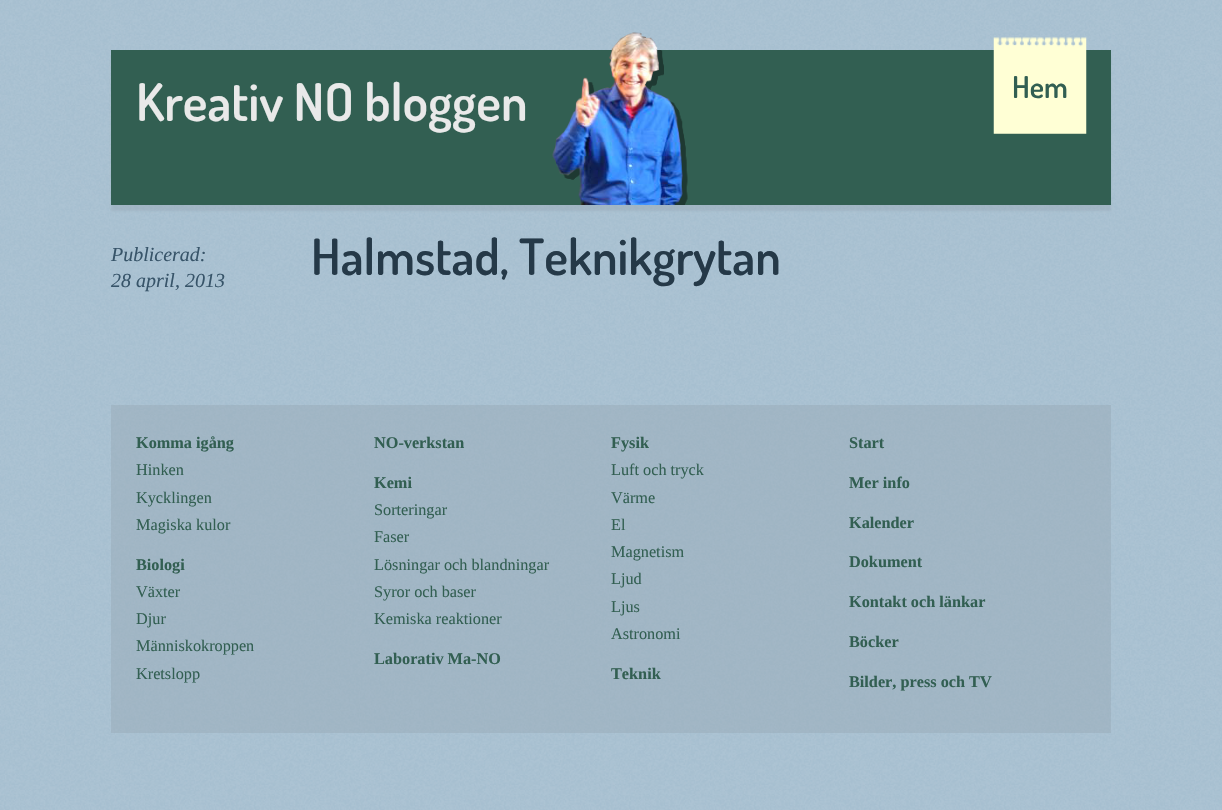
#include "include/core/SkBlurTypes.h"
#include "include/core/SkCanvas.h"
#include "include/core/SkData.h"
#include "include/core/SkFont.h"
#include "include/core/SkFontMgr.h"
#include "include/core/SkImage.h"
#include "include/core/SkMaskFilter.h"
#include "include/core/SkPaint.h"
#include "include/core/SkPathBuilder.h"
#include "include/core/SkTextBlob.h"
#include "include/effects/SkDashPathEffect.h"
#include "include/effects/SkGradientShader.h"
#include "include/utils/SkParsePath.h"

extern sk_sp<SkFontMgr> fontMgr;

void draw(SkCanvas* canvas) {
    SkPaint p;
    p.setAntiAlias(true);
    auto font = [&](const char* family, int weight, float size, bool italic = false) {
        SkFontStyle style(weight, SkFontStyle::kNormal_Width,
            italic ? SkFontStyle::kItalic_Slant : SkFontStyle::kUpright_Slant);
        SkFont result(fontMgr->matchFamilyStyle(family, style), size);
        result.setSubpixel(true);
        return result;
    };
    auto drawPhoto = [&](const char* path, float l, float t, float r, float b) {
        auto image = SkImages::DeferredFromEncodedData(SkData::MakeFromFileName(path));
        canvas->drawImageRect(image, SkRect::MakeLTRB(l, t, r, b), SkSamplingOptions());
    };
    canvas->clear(0xFFFFFFFF);
    drawPhoto("media/1.png", 0, 0, 1222, 810);
    p.setColor(0x6693A6B1);
    p.setMaskFilter(SkMaskFilter::MakeBlur(kNormal_SkBlurStyle, 1));
    canvas->drawRect(SkRect::MakeLTRB(111, 56, 1111, 211), p);
    p.setMaskFilter(nullptr);
    p.setColor(0xFF325F52);
    canvas->drawRect(SkRect::MakeLTRB(111, 50, 1111, 205), p);
    auto font1 = font("Dosis", 600, 52);
    p.setColor(0xFFE9E9E9);
    canvas->drawString("Kreativ NO bloggen", 136, 121, font1, p);
    drawPhoto("media/3.png", 562, 50, 688, 205);
    drawPhoto("media/2.png", 552, 32, 683, 205);
    drawPhoto("media/4.png", 993, 37, 1087, 134);
    auto font2 = font("Dosis", 600, 30);
    p.setColor(0xFF325F52);
    canvas->drawString("Hem", 1012, 98, font2, p);
    auto font3 = font("Liberation Serif", 400, 20, true);
    p.setColor(0xFF375469);
    canvas->drawString("Publicerad:", 111, 261, font3, p);
    canvas->drawString("28 april, 2013", 111, 287, font3, p);
    auto font4 = font("Dosis", 600, 50);
    p.setColor(0xFF253948);
    canvas->drawString("Halmstad, Teknikgrytan", 311, 275, font4, p);
    p.setColor(0x6693A6B1);
    canvas->drawRect(SkRect::MakeLTRB(111, 405, 1111, 733), p);
    auto font5 = font("Liberation Serif", 700, 16.25f);
    p.setColor(0xFF325F52);
    canvas->drawString("Komma igång", 136, 448, font5, p);
    auto font6 = font("Liberation Serif", 400, 16.25f);
    {
        const struct { const char* s; float x, y; } items[] = {
            {"Hinken", 136, 475},
            {"Kycklingen", 136, 503},
            {"Magiska kulor", 136, 530},
        };
        for (auto [s, x, y] : items) {
            canvas->drawString(s, x, y, font6, p);
        }
    }
    canvas->drawString("Biologi", 136, 570, font5, p);
    {
        const struct { const char* s; float x, y; } items[] = {
            {"Växter", 136, 597},
            {"Djur", 136, 624},
            {"Människokroppen", 136, 651},
            {"Kretslopp", 136, 679},
        };
        for (auto [s, x, y] : items) {
            canvas->drawString(s, x, y, font6, p);
        }
    }
    canvas->drawString("NO-verkstan", 374, 448, font5, p);
    canvas->drawString("Kemi", 374, 488, font5, p);
    {
        const struct { const char* s; float x, y; } items[] = {
            {"Sorteringar", 374, 515},
            {"Faser", 374, 542},
            {"Lösningar och blandningar", 374, 570},
            {"Syror och baser", 374, 597},
            {"Kemiska reaktioner", 374, 624},
        };
        for (auto [s, x, y] : items) {
            canvas->drawString(s, x, y, font6, p);
        }
    }
    canvas->drawString("Laborativ Ma-NO", 374, 664, font5, p);
    canvas->drawString("Fysik", 611, 448, font5, p);
    {
        const struct { const char* s; float x, y; } items[] = {
            {"Luft och tryck", 611, 475},
            {"Värme", 611, 503},
            {"El", 611, 530},
            {"Magnetism", 611, 557},
            {"Ljud", 611, 584},
            {"Ljus", 611, 612},
            {"Astronomi", 611, 639},
        };
        for (auto [s, x, y] : items) {
            canvas->drawString(s, x, y, font6, p);
        }
    }
    {
        const struct { const char* s; float x, y; } items[] = {
            {"Teknik", 611, 679},
            {"Start", 849, 448},
            {"Mer info", 849, 488},
            {"Kalender", 849, 528},
            {"Dokument", 849, 567},
            {"Kontakt och länkar", 849, 607},
            {"Böcker", 849, 647},
            {"Bilder, press och TV", 849, 687},
        };
        for (auto [s, x, y] : items) {
            canvas->drawString(s, x, y, font5, p);
        }
    }
}
